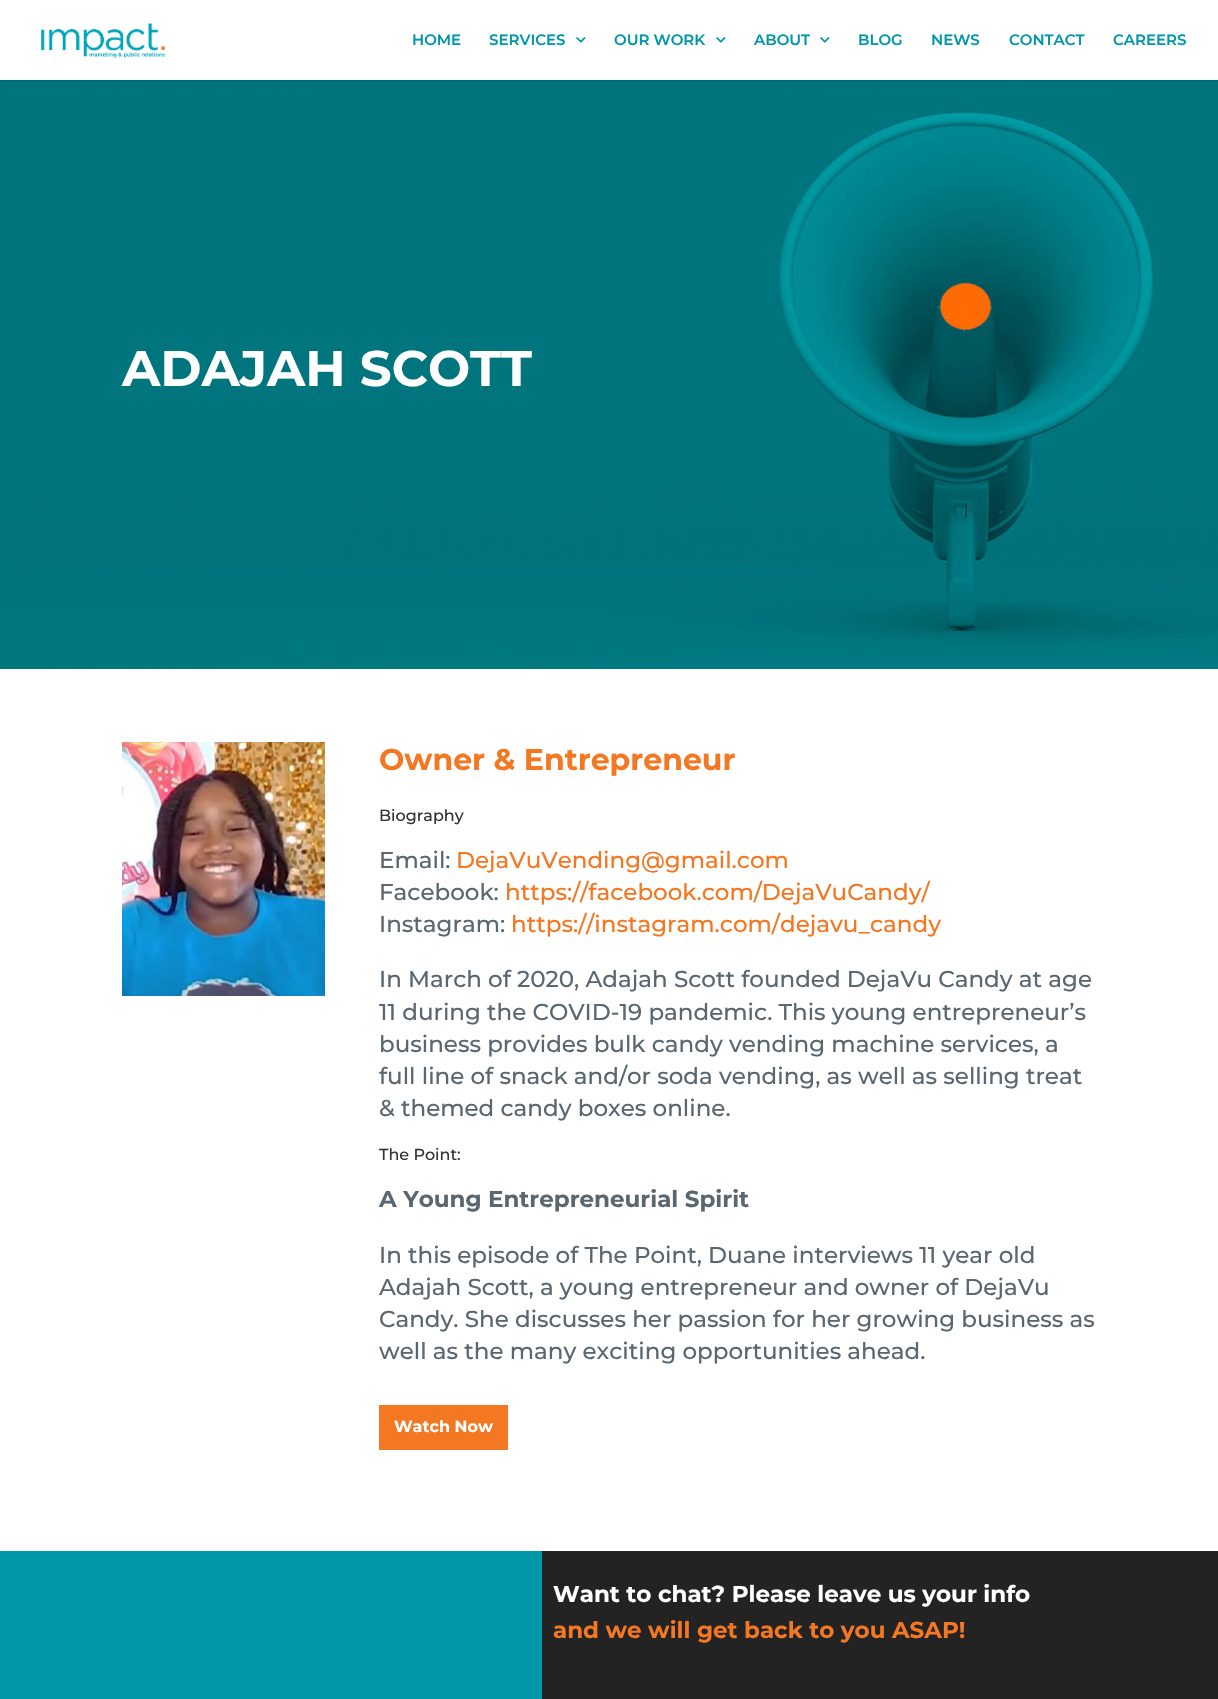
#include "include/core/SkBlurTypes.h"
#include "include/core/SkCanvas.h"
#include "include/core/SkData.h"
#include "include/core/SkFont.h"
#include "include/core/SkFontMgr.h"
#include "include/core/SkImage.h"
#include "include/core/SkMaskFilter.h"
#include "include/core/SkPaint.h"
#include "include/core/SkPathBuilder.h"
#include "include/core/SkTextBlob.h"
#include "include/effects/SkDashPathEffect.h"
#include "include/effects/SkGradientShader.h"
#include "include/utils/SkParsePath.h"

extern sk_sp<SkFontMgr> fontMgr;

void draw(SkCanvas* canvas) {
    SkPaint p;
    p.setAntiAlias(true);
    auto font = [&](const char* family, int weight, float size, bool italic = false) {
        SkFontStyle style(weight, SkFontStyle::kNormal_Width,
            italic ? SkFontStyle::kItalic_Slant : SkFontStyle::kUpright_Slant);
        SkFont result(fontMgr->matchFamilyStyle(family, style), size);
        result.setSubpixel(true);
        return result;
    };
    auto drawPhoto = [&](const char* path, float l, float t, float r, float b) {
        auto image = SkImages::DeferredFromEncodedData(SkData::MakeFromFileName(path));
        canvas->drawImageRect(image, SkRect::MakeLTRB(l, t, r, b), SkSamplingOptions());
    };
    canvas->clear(0xFFFFFFFF);
    drawPhoto("media/3.png", 0, 80, 1218, 669);
    p.setColor(0x1A000000);
    canvas->drawRect(SkRect::MakeLTRB(0, 80, 1218, 81), p);
    drawPhoto("media/1.png", 41, 23, 165, 58);
    auto font1 = font("Montserrat", 600, 15);
    p.setColor(0xFF0097A9);
    canvas->drawString("HOME", 412, 45, font1, p);
    canvas->drawString("SERVICES", 489, 45, font1, p);
    drawPhoto("media/2.png", 576, 37, 586, 43);
    canvas->drawString("OUR WORK", 614, 45, font1, p);
    drawPhoto("media/2.png", 716, 37, 726, 43);
    canvas->drawString("ABOUT", 754, 45, font1, p);
    drawPhoto("media/2.png", 820, 37, 830, 43);
    {
        const struct { const char* s; float x, y; } items[] = {
            {"BLOG", 858, 45},
            {"NEWS", 931, 45},
            {"CONTACT", 1009, 45},
            {"CAREERS", 1113, 45},
        };
        for (auto [s, x, y] : items) {
            canvas->drawString(s, x, y, font1, p);
        }
    }
    auto font2 = font("Montserrat", 700, 50);
    p.setColor(0xFFFFFFFF);
    canvas->drawString("ADAJAH SCOTT", 122, 386, font2, p);
    drawPhoto("media/4.png", 122, 742, 325, 996);
    auto font3 = font("Montserrat", 700, 30);
    p.setColor(0xFFF47721);
    canvas->drawString("Owner & Entrepreneur", 379, 770, font3, p);
    auto font4 = font("Montserrat", 500, 16);
    p.setColor(0xFF333333);
    canvas->drawString("Biography", 379, 821, font4, p);
    auto font5 = font("Montserrat", 500, 23);
    p.setColor(0xFF5B6770);
    canvas->drawString("Email:", 379, 868, font5, p);
    p.setColor(0xFFF47721);
    canvas->drawString("DejaVuVending@gmail.com", 456, 868, font5, p);
    p.setColor(0xFF5B6770);
    canvas->drawString("Facebook:", 379, 900, font5, p);
    p.setColor(0xFFF47721);
    canvas->drawString("https://facebook.com/DejaVuCandy/", 505, 900, font5, p);
    p.setColor(0xFF5B6770);
    canvas->drawString("Instagram:", 379, 932, font5, p);
    p.setColor(0xFFF47721);
    canvas->drawString("https://instagram.com/dejavu_candy", 511, 932, font5, p);
    p.setColor(0xFF5B6770);
    {
        const struct { const char* s; float x, y; } items[] = {
            {"In March of 2020, Adajah Scott founded DejaVu Candy at age", 379, 987},
            {"11 during the COVID-19 pandemic. This young entrepreneur’s", 379, 1020},
            {"business provides bulk candy vending machine services, a", 379, 1052},
            {"full line of snack and/or soda vending, as well as selling treat", 379, 1084},
            {"& themed candy boxes online.", 379, 1116},
        };
        for (auto [s, x, y] : items) {
            canvas->drawString(s, x, y, font5, p);
        }
    }
    p.setColor(0xFF333333);
    canvas->drawString("The Point:", 379, 1160, font4, p);
    auto font6 = font("Montserrat", 700, 23);
    p.setColor(0xFF5B6770);
    canvas->drawString("A Young Entrepreneurial Spirit", 379, 1207, font6, p);
    {
        const struct { const char* s; float x, y; } items[] = {
            {"In this episode of The Point, Duane interviews 11 year old", 379, 1263},
            {"Adajah Scott, a young entrepreneur and owner of DejaVu", 379, 1295},
            {"Candy. She discusses her passion for her growing business as", 379, 1327},
            {"well as the many exciting opportunities ahead.", 379, 1359},
        };
        for (auto [s, x, y] : items) {
            canvas->drawString(s, x, y, font5, p);
        }
    }
    p.setColor(0xFFF47721);
    canvas->drawRect(SkRect::MakeLTRB(379, 1405, 508, 1450), p);
    auto font7 = font("Montserrat", 700, 16);
    p.setColor(0xFFFFFFFF);
    canvas->drawString("Watch Now", 394, 1432, font7, p);
    p.setColor(0xFF232323);
    canvas->drawRect(SkRect::MakeLTRB(542, 1551, 1218, 1699), p);
    p.setColor(0xFF0097A9);
    canvas->drawRect(SkRect::MakeLTRB(0, 1551, 542, 1699), p);
    p.setColor(0xFFFFFFFF);
    canvas->drawString("Want to chat? Please leave us your info", 553, 1602, font6, p);
    p.setColor(0xFFF47721);
    canvas->drawString("and we will get back to you ASAP!", 553, 1638, font6, p);
}
